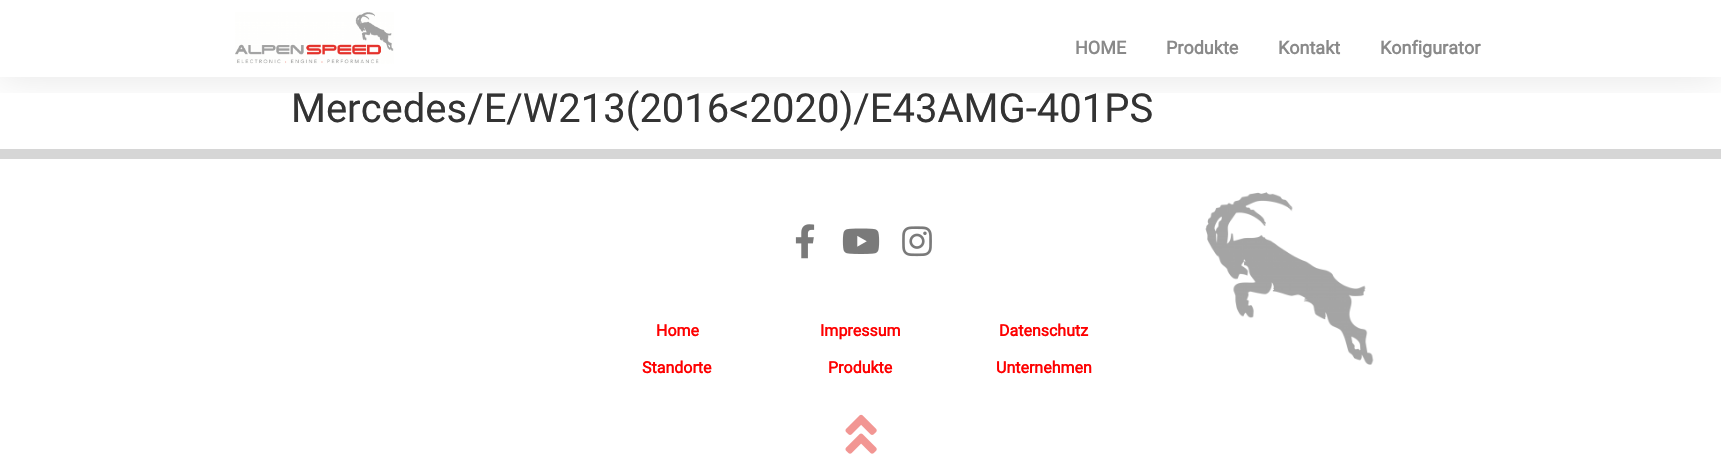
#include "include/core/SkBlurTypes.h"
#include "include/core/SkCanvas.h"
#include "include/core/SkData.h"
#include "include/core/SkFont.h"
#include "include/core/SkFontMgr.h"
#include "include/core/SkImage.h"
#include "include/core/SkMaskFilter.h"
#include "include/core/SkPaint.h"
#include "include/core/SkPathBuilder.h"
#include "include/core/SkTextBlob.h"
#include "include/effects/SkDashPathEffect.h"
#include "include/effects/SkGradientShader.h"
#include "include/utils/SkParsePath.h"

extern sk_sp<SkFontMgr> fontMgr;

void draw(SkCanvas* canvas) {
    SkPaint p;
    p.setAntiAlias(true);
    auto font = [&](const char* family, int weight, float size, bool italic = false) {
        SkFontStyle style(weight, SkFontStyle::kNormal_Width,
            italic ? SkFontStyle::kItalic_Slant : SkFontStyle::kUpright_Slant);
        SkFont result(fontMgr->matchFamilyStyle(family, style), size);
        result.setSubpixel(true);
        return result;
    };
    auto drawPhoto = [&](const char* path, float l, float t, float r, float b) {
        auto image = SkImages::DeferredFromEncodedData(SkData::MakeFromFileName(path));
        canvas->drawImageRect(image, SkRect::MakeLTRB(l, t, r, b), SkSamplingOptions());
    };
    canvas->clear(0xFFFFFFFF);
    canvas->save();
    canvas->clipRect(SkRect::MakeLTRB(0, 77, 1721, 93));
    p.setColor(0x1A000000);
    p.setMaskFilter(SkMaskFilter::MakeBlur(kNormal_SkBlurStyle, 19));
    canvas->drawRect(SkRect::MakeLTRB(0, 0, 1721, 77), p);
    p.setMaskFilter(nullptr);
    canvas->restore();
    drawPhoto("media/1.png", 235, 12, 394, 64);
    auto font1 = font("Roboto", 700, 18);
    p.setColor(0xFF898989);
    {
        const struct { const char* s; float x, y; } items[] = {
            {"HOME", 1075, 54},
            {"Produkte", 1166, 54},
            {"Kontakt", 1278, 54},
            {"Konfigurator", 1380, 54},
        };
        for (auto [s, x, y] : items) {
            canvas->drawString(s, x, y, font1, p);
        }
    }
    auto font2 = font("Roboto", 400, 40);
    p.setColor(0xFF333333);
    canvas->drawString("Mercedes/E/W213(2016<2020)/E43AMG-401PS", 291, 122, font2, p);
    p.setColor(0xFFD6D6D6);
    canvas->drawRect(SkRect::MakeLTRB(0, 149, 1721, 159), p);
    drawPhoto("media/2.png", 795, 224, 815, 259);
    drawPhoto("media/3.png", 842, 228, 880, 254);
    drawPhoto("media/4.png", 902, 226, 932, 257);
    auto font3 = font("Roboto", 700, 16);
    p.setColor(0xFFFE0000);
    {
        const struct { const char* s; float x, y; } items[] = {
            {"Home", 656, 336},
            {"Impressum", 820, 336},
            {"Datenschutz", 999, 336},
            {"Standorte", 642, 373},
            {"Produkte", 828, 373},
            {"Unternehmen", 996, 373},
        };
        for (auto [s, x, y] : items) {
            canvas->drawString(s, x, y, font3, p);
        }
    }
    drawPhoto("media/5.png", 1205, 192, 1374, 365);
    drawPhoto("media/6.png", 845, 414, 877, 454);
}
